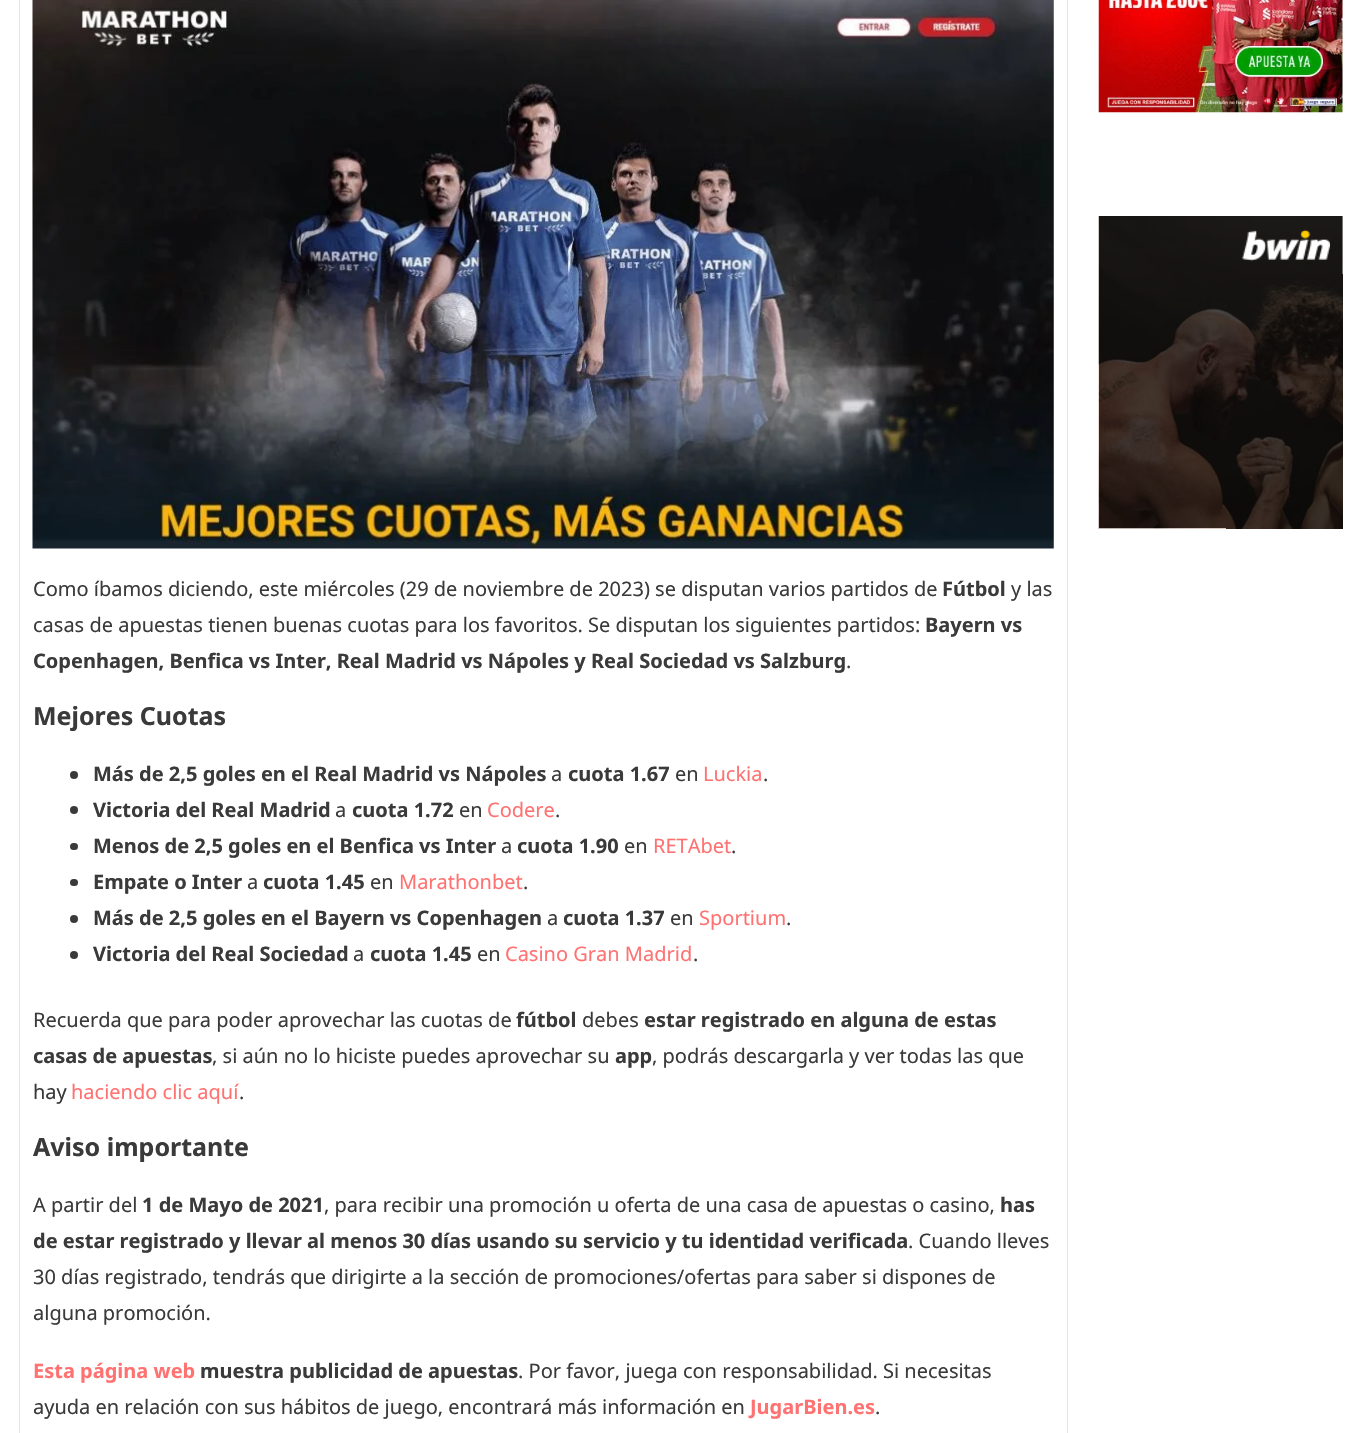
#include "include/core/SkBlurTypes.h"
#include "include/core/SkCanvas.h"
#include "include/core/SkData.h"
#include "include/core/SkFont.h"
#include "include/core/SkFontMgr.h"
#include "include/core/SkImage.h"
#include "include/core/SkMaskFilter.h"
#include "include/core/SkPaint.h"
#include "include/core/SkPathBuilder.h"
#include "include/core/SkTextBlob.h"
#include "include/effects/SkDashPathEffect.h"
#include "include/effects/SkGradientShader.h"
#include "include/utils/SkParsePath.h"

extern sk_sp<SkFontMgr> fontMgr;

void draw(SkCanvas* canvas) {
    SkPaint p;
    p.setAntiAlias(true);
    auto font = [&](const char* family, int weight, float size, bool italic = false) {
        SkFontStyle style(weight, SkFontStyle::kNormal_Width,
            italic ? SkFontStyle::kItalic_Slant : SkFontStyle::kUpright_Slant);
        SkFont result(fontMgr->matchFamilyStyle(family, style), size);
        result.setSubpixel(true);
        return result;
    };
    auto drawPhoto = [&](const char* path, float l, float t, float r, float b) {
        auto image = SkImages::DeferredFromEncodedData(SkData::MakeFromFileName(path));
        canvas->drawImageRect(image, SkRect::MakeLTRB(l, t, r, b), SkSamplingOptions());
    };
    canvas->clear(0xFFFFFFFF);
    drawPhoto("media/1.png", 1098, 0, 1343, 113);
    drawPhoto("media/2.png", 1098, 216, 1343, 529);
    p.setStyle(SkPaint::kStroke_Style);
    p.setStrokeWidth(1);
    p.setColor(0xFFE6E6E6);
    canvas->drawRect(SkRect::MakeLTRB(19.5f, -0.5f, 1067.5f, 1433.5f), p);
    drawPhoto("media/3.png", 32, 0, 1054, 549);
    auto font1 = font("Noto Sans", 400, 20);
    p.setStyle(SkPaint::kFill_Style);
    p.setColor(0xFF3A3A3A);
    canvas->drawString("Como íbamos diciendo, este miércoles (29 de noviembre de 2023) se disputan varios partidos de", 33, 596, font1, p);
    auto font2 = font("Noto Sans", 700, 20);
    canvas->drawString("Fútbol", 942, 596, font2, p);
    canvas->drawString("y las", 1011, 596, font1, p);
    canvas->drawString("casas de apuestas tienen buenas cuotas para los favoritos. Se disputan los siguientes partidos:", 33, 632, font1, p);
    canvas->drawString("Bayern vs", 925, 632, font2, p);
    canvas->drawString("Copenhagen, Benfica vs Inter, Real Madrid vs Nápoles y Real Sociedad vs Salzburg", 33, 668, font2, p);
    canvas->drawString(".", 846, 668, font1, p);
    auto font3 = font("Noto Sans", 700, 25);
    canvas->drawString("Mejores Cuotas", 33, 725, font3, p);
    canvas->drawCircle(74, 775, 4, p);
    canvas->drawString("Más de 2,5 goles en el Real Madrid vs Nápoles", 93, 781, font2, p);
    canvas->drawString("a", 551, 781, font1, p);
    canvas->drawString("cuota 1.67", 568, 781, font2, p);
    canvas->drawString("en", 675, 781, font1, p);
    p.setColor(0xFFFF7272);
    canvas->drawString("Luckia", 703, 781, font1, p);
    p.setColor(0xFF3A3A3A);
    canvas->drawString(".", 763, 781, font1, p);
    canvas->drawCircle(74, 810, 4, p);
    canvas->drawString("Victoria del Real Madrid", 93, 817, font2, p);
    canvas->drawString("a", 335, 817, font1, p);
    canvas->drawString("cuota 1.72", 352, 817, font2, p);
    canvas->drawString("en", 459, 817, font1, p);
    p.setColor(0xFFFF7272);
    canvas->drawString("Codere", 487, 817, font1, p);
    p.setColor(0xFF3A3A3A);
    canvas->drawString(".", 555, 817, font1, p);
    canvas->drawRoundRect(SkRect::MakeLTRB(70, 843, 78, 850), 3.5f, 3.5f, p);
    canvas->drawString("Menos de 2,5 goles en el Benfica vs Inter", 93, 853, font2, p);
    canvas->drawString("a", 501, 853, font1, p);
    canvas->drawString("cuota 1.90", 517, 853, font2, p);
    canvas->drawString("en", 624, 853, font1, p);
    p.setColor(0xFFFF7272);
    canvas->drawString("RETAbet", 653, 853, font1, p);
    p.setColor(0xFF3A3A3A);
    canvas->drawString(".", 731, 853, font1, p);
    canvas->drawRoundRect(SkRect::MakeLTRB(70, 879, 78, 886), 3.5f, 3.5f, p);
    canvas->drawString("Empate o Inter", 93, 889, font2, p);
    canvas->drawString("a", 247, 889, font1, p);
    canvas->drawString("cuota 1.45", 263, 889, font2, p);
    canvas->drawString("en", 370, 889, font1, p);
    p.setColor(0xFFFF7272);
    canvas->drawString("Marathonbet", 399, 889, font1, p);
    p.setColor(0xFF3A3A3A);
    canvas->drawString(".", 523, 889, font1, p);
    canvas->drawCircle(74, 919, 4, p);
    canvas->drawString("Más de 2,5 goles en el Bayern vs Copenhagen", 93, 925, font2, p);
    canvas->drawString("a", 547, 925, font1, p);
    canvas->drawString("cuota 1.37", 563, 925, font2, p);
    canvas->drawString("en", 670, 925, font1, p);
    p.setColor(0xFFFF7272);
    canvas->drawString("Sportium", 699, 925, font1, p);
    p.setColor(0xFF3A3A3A);
    canvas->drawString(".", 786, 925, font1, p);
    canvas->drawCircle(74, 955, 4, p);
    canvas->drawString("Victoria del Real Sociedad", 93, 961, font2, p);
    canvas->drawString("a", 353, 961, font1, p);
    canvas->drawString("cuota 1.45", 370, 961, font2, p);
    canvas->drawString("en", 477, 961, font1, p);
    p.setColor(0xFFFF7272);
    canvas->drawString("Casino Gran Madrid", 505, 961, font1, p);
    p.setColor(0xFF3A3A3A);
    canvas->drawString(".", 693, 961, font1, p);
    canvas->drawString("Recuerda que para poder aprovechar las cuotas de", 33, 1027, font1, p);
    canvas->drawString("fútbol", 516, 1027, font2, p);
    canvas->drawString("debes", 582, 1027, font1, p);
    canvas->drawString("estar registrado en alguna de estas", 644, 1027, font2, p);
    canvas->drawString("casas de apuestas", 33, 1063, font2, p);
    canvas->drawString(", si aún no lo hiciste puedes aprovechar su", 212, 1063, font1, p);
    canvas->drawString("app", 615, 1063, font2, p);
    canvas->drawString(", podrás descargarla y ver todas las que", 652, 1063, font1, p);
    canvas->drawString("hay", 33, 1099, font1, p);
    p.setColor(0xFFFF7272);
    canvas->drawString("haciendo clic aquí", 71, 1099, font1, p);
    p.setColor(0xFF3A3A3A);
    canvas->drawString(".", 239, 1099, font1, p);
    canvas->drawString("Aviso importante", 33, 1156, font3, p);
    canvas->drawString("A partir del", 33, 1212, font1, p);
    canvas->drawString("1 de Mayo de 2021", 142, 1212, font2, p);
    canvas->drawString(", para recibir una promoción u oferta de una casa de apuestas o casino,", 324, 1212, font1, p);
    canvas->drawString("has", 1000, 1212, font2, p);
    canvas->drawString("de estar registrado y llevar al menos 30 días usando su servicio y tu identidad verificada", 33, 1248, font2, p);
    {
        const struct { const char* s; float x, y; } items[] = {
            {". Cuando lleves", 908, 1248},
            {"30 días registrado, tendrás que dirigirte a la sección de promociones/ofertas para saber si dispones de", 33, 1284},
            {"alguna promoción.", 33, 1320},
        };
        for (auto [s, x, y] : items) {
            canvas->drawString(s, x, y, font1, p);
        }
    }
    p.setColor(0xFFFF7272);
    canvas->drawString("Esta página web", 33, 1378, font2, p);
    p.setColor(0xFF3A3A3A);
    canvas->drawString("muestra publicidad de apuestas", 200, 1378, font2, p);
    canvas->drawString(". Por favor, juega con responsabilidad. Si necesitas", 518, 1378, font1, p);
    canvas->drawString("ayuda en relación con sus hábitos de juego, encontrará más información en", 33, 1414, font1, p);
    p.setColor(0xFFFF7272);
    canvas->drawString("JugarBien.es", 750, 1414, font2, p);
    p.setColor(0xFF3A3A3A);
    canvas->drawString(".", 875, 1414, font1, p);
}
